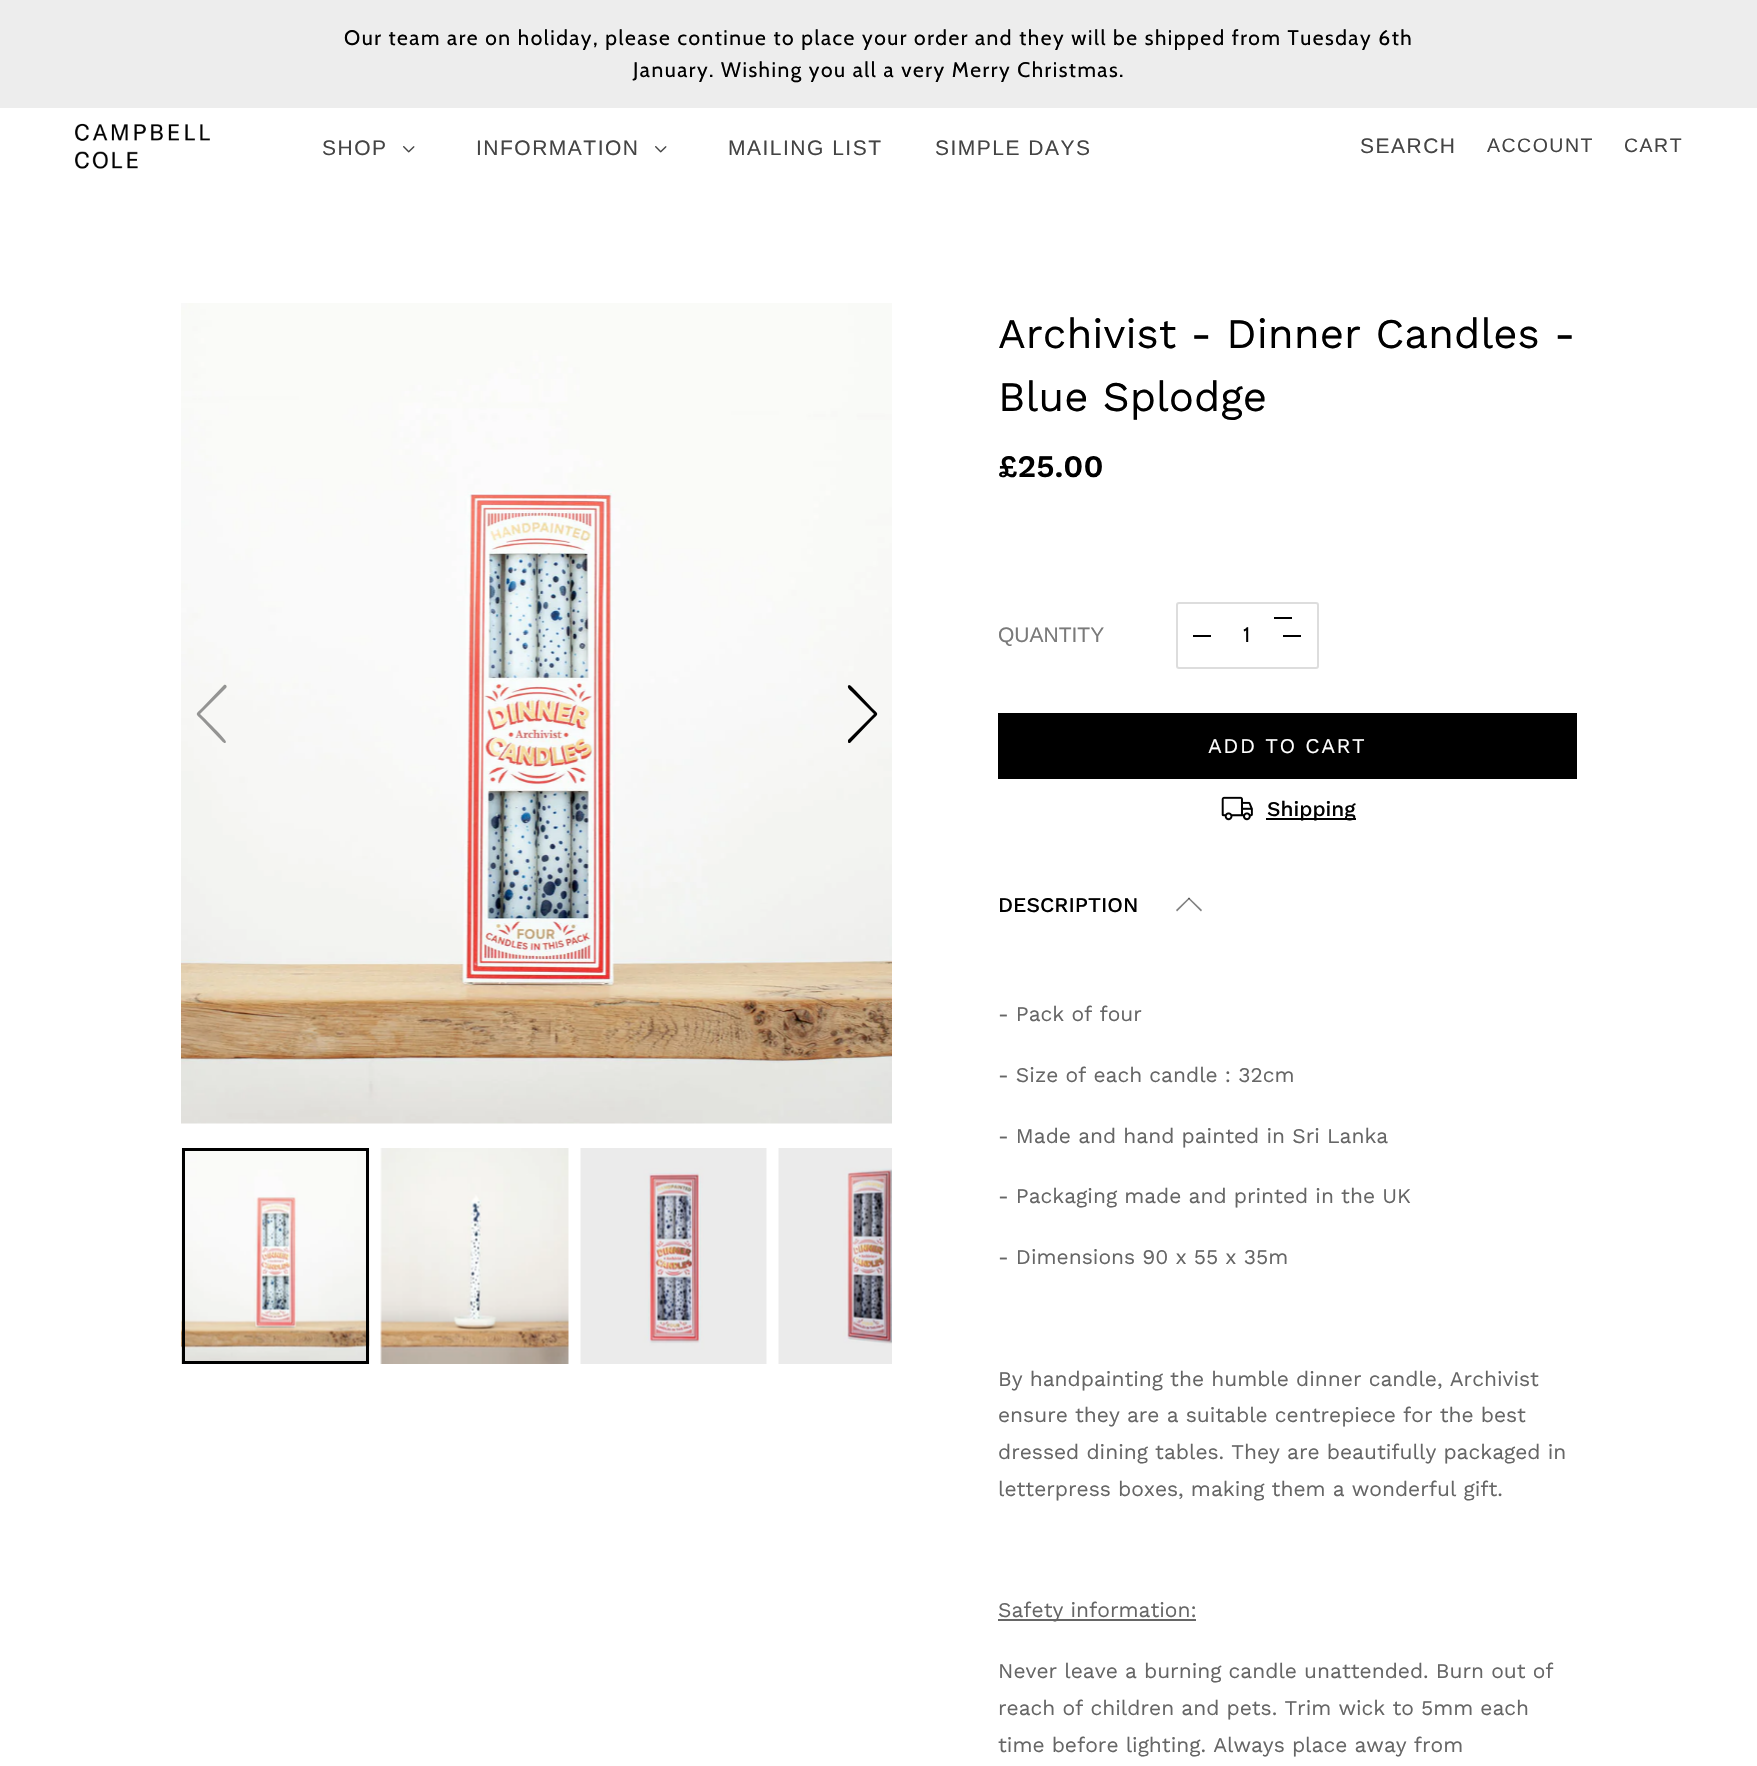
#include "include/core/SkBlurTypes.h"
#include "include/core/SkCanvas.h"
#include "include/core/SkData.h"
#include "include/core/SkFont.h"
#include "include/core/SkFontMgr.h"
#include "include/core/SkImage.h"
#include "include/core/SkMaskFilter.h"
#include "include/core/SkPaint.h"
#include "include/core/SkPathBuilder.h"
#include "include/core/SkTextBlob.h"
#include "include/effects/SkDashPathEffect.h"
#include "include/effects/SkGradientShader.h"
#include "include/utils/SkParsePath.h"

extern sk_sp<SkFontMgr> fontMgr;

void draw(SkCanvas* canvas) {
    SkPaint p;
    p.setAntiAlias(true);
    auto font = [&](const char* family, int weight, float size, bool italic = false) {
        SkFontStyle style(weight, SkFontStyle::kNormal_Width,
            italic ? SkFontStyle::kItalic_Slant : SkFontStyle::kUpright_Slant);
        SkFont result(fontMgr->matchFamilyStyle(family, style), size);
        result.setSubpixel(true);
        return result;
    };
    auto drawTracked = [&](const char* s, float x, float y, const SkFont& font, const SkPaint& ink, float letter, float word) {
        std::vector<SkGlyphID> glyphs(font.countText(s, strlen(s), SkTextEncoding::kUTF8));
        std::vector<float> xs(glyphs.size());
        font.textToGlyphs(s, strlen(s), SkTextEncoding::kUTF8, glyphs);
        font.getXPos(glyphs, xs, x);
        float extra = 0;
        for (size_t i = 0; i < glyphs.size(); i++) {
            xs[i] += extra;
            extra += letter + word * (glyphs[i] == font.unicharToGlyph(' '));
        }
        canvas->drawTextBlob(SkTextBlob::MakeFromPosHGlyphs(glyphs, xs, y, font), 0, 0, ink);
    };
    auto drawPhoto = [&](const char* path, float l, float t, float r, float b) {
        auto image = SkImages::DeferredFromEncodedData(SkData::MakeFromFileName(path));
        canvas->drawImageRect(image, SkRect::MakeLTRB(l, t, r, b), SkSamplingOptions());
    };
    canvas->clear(0xFFFFFFFF);
    p.setColor(0xFFEDEDED);
    canvas->drawRect(SkRect::MakeLTRB(0, 0, 1757, 108), p);
    auto font1 = font("Cabin", 400, 21);
    p.setColor(0xFF000000);
    drawTracked("Our team are on holiday, please continue to place your order and they will be shipped from Tuesday 6th", 344, 45, font1, p, 1.5f, 0);
    drawTracked("January. Wishing you all a very Merry Christmas.", 633, 77, font1, p, 1.5f, 0);
    drawPhoto("media/1.png", 75, 123, 210, 169);
    auto font2 = font("Liberation Sans", 400, 21);
    p.setColor(0xFF444444);
    drawTracked("SHOP", 322, 155, font2, p, 1.5f, 0);
    drawPhoto("media/2.png", 403, 146, 415, 153);
    drawTracked("INFORMATION", 476, 155, font2, p, 1.5f, 0);
    drawPhoto("media/2.png", 655, 146, 667, 153);
    {
        const struct { const char* s; float x, y; } items[] = {
            {"MAILING LIST", 728, 155},
            {"SIMPLE DAYS", 935, 155},
            {"SEARCH", 1360, 153},
        };
        for (auto [s, x, y] : items) {
            drawTracked(s, x, y, font2, p, 1.5f, 0);
        }
    }
    auto font3 = font("Liberation Sans", 400, 19.5f);
    drawTracked("ACCOUNT", 1487, 152, font3, p, 1.5f, 0);
    drawTracked("CART", 1624, 152, font3, p, 1.5f, 0);
    drawPhoto("media/3.png", 181, 303, 892, 1124);
    p.setColor(0xFF949493);
    canvas->drawPath(SkPathBuilder().moveTo(224, 685).lineTo(202, 708).cubicTo(195, 715, 195, 713, 202, 720).lineTo(219, 738).cubicTo(222, 741, 225, 745, 226, 742).cubicTo(227, 740, 203, 717, 200, 714).lineTo(226, 688).cubicTo(228, 686, 225, 684, 224, 685).close().detach(), p);
    p.setColor(0xFF000000);
    canvas->drawPath(SkPathBuilder().moveTo(850, 743).lineTo(872, 720).cubicTo(879, 713, 879, 715, 872, 708).lineTo(855, 690).cubicTo(852, 687, 849, 683, 848, 686).cubicTo(847, 688, 851, 691, 852, 692).lineTo(874, 714).lineTo(848, 740).lineTo(848, 742).cubicTo(848, 743, 849, 743, 850, 743).close().detach(), p);
    drawPhoto("media/4.png", 181, 1148, 370, 1364);
    p.setStyle(SkPaint::kStroke_Style);
    p.setStrokeWidth(3);
    canvas->drawRect(SkRect::MakeLTRB(183.5f, 1149.5f, 367.5f, 1362.5f), p);
    drawPhoto("media/5.png", 380, 1148, 569, 1364);
    drawPhoto("media/6.png", 580, 1148, 767, 1364);
    drawPhoto("media/7.png", 778, 1148, 892, 1364);
    auto font4 = font("Work Sans", 400, 42);
    p.setStyle(SkPaint::kFill_Style);
    canvas->drawString("Archivist - Dinner Candles -", 998, 348, font4, p);
    canvas->drawString("Blue Splodge", 998, 411, font4, p);
    auto font5 = font("Work Sans", 600, 31.5f);
    canvas->drawString("£25.00", 998, 477, font5, p);
    p.setColor(0xFF7A7A7A);
    canvas->drawString("QUANTITY", 998, 642, font2, p);
    p.setStyle(SkPaint::kStroke_Style);
    p.setStrokeWidth(2);
    p.setColor(0xFFDDDDDD);
    canvas->drawRoundRect(SkRect::MakeLTRB(1177, 603, 1318, 668), 2, 2, p);
    p.setStyle(SkPaint::kFill_Style);
    p.setColor(0xFF000000);
    canvas->drawRect(SkRect::MakeLTRB(1193, 635, 1211, 637), p);
    canvas->drawString("1", 1243, 642, font1, p);
    {
        const struct { float l, t, r, b; SkColor color; } items[] = {
            {1274, 617, 1292, 619, 0xFF000000},
            {1283, 635, 1301, 637, 0xFF000000},
            {998, 713, 1577, 779, 0xFF000000},
        };
        for (auto [l, t, r, b, color] : items) {
            p.setColor(color);
            canvas->drawRect(SkRect::MakeLTRB(l, t, r, b), p);
        }
    }
    auto font6 = font("Work Sans", 400, 21);
    p.setColor(0xFFFFFFFF);
    drawTracked("ADD TO CART", 1208, 753, font6, p, 1.5f, 0);
    drawPhoto("media/8.png", 1221, 796, 1253, 821);
    p.setColor(0xFF000000);
    canvas->drawRect(SkRect::MakeLTRB(1266, 818, 1356, 820), p);
    auto font7 = font("Work Sans", 500, 21);
    canvas->drawString("Shipping", 1267, 816, font7, p);
    canvas->drawString("DESCRIPTION", 998, 912, font7, p);
    p.setColor(0xFF808080);
    canvas->drawPath(SkPathBuilder().moveTo(1189, 897.5f).lineTo(1202, 910).lineTo(1201, 911.5f).lineTo(1188, 898.5f).close().detach(), p);
    p.setColor(0x80000000);
    canvas->drawPath(SkPathBuilder().moveTo(1176, 910).lineTo(1189, 897.5f).lineTo(1190, 898.5f).lineTo(1177, 911.5f).close().detach(), p);
    p.setColor(0xFF666666);
    {
        const struct { const char* s; float x, y; } items[] = {
            {"- Pack of four", 998, 1021},
            {"- Size of each candle : 32cm", 998, 1082},
            {"- Made and hand painted in Sri Lanka", 998, 1143},
            {"- Packaging made and printed in the UK", 998, 1203},
            {"- Dimensions 90 x 55 x 35m", 998, 1264},
            {"By handpainting the humble dinner candle, Archivist", 998, 1386},
            {"ensure they are a suitable centrepiece for the best", 998, 1422},
            {"dressed dining tables. They are beautifully packaged in", 998, 1459},
            {"letterpress boxes, making them a wonderful gift.", 998, 1496},
        };
        for (auto [s, x, y] : items) {
            canvas->drawString(s, x, y, font6, p);
        }
    }
    canvas->drawRect(SkRect::MakeLTRB(998, 1619, 1196, 1621), p);
    {
        const struct { const char* s; float x, y; } items[] = {
            {"Safety information:", 998, 1617},
            {"Never leave a burning candle unattended. Burn out of", 998, 1678},
            {"reach of children and pets. Trim wick to 5mm each", 998, 1715},
            {"time before lighting. Always place away from", 998, 1752},
        };
        for (auto [s, x, y] : items) {
            canvas->drawString(s, x, y, font6, p);
        }
    }
}
